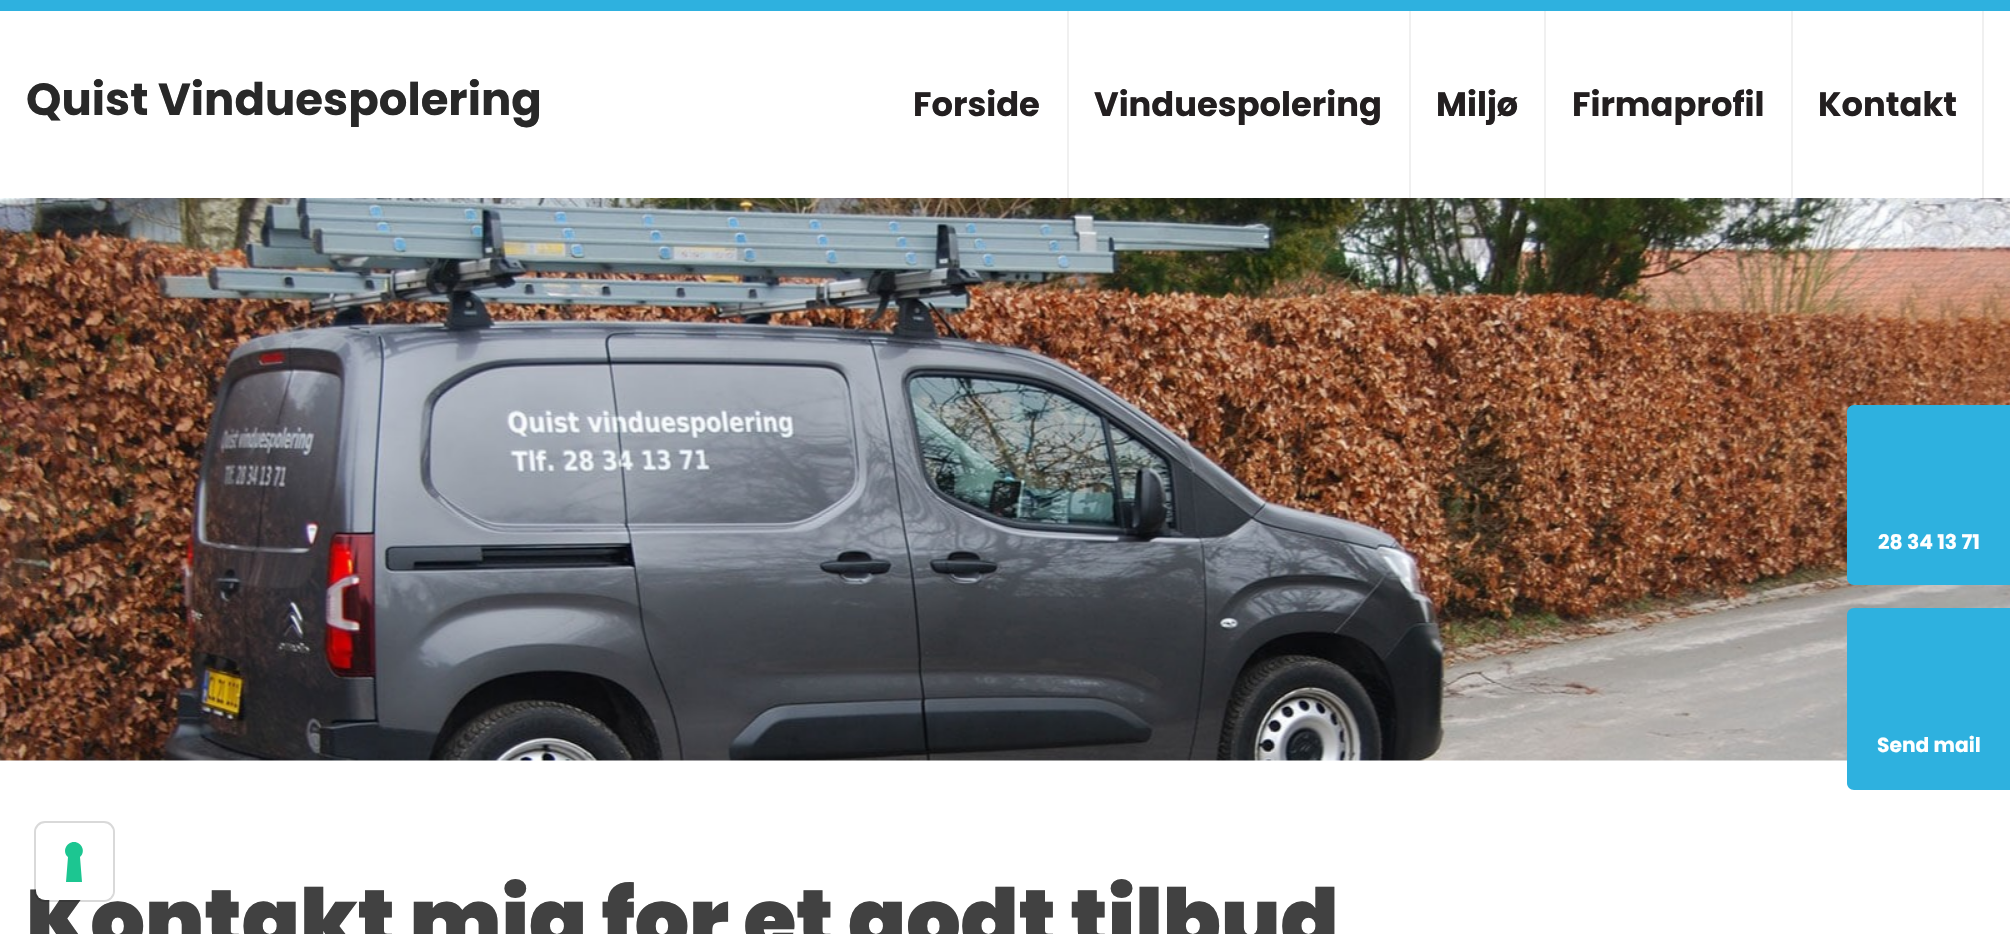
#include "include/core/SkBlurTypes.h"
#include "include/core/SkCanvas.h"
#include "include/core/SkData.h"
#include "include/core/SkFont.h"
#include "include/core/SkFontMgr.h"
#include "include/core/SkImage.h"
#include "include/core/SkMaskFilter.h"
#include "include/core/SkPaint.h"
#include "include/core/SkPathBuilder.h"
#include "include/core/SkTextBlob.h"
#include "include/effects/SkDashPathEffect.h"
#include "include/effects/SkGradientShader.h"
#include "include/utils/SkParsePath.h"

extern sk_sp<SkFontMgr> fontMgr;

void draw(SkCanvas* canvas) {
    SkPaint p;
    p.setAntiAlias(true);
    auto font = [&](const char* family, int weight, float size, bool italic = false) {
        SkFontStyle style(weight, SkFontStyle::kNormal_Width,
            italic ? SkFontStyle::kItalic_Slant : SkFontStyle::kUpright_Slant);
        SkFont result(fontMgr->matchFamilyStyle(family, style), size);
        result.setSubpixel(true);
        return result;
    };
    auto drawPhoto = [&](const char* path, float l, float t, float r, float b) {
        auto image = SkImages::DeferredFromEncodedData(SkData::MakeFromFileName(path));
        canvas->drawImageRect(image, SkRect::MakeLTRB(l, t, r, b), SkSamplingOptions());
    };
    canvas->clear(0xFFFFFFFF);
    p.setColor(0xFF2EB1DF);
    canvas->drawRect(SkRect::MakeLTRB(0, 0, 2010, 11), p);
    auto font1 = font("Poppins", 700, 45);
    p.setColor(0xFF282828);
    canvas->drawString("Quist Vinduespolering", 26, 115, font1, p);
    p.setColor(0xFFF0F0F0);
    canvas->drawRect(SkRect::MakeLTRB(1067, 11, 1069, 198), p);
    auto font2 = font("Poppins", 700, 33.75f);
    p.setColor(0xFF231F20);
    canvas->drawString("Forside", 913, 116, font2, p);
    p.setColor(0xFFF0F0F0);
    canvas->drawRect(SkRect::MakeLTRB(1409, 11, 1411, 198), p);
    p.setColor(0xFF231F20);
    canvas->drawString("Vinduespolering", 1094, 116, font2, p);
    p.setColor(0xFFF0F0F0);
    canvas->drawRect(SkRect::MakeLTRB(1544, 11, 1546, 198), p);
    p.setColor(0xFF231F20);
    canvas->drawString("Miljø", 1436, 116, font2, p);
    p.setColor(0xFFF0F0F0);
    canvas->drawRect(SkRect::MakeLTRB(1791, 11, 1793, 198), p);
    p.setColor(0xFF231F20);
    canvas->drawString("Firmaprofil", 1572, 116, font2, p);
    p.setColor(0xFFF0F0F0);
    canvas->drawRect(SkRect::MakeLTRB(1982, 11, 1984, 198), p);
    p.setColor(0xFF231F20);
    canvas->drawString("Kontakt", 1818, 116, font2, p);
    drawPhoto("media/1.png", 0, 198, 2010, 761);
    p.setColor(0xFF2EB1DF);
    canvas->drawPath(SkPathBuilder().moveTo(1854, 405).lineTo(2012, 405).lineTo(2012, 585).lineTo(1854, 585).cubicTo(1850, 585, 1847, 582, 1847, 578).lineTo(1847, 412).cubicTo(1847, 408, 1850, 405, 1854, 405).close().detach(), p);
    auto font3 = font("Poppins", 700, 20.25f);
    p.setColor(0xFFFFFFFF);
    canvas->drawString("28 34 13 71", 1878, 549, font3, p);
    p.setColor(0xFF2EB1DF);
    canvas->drawPath(SkPathBuilder().moveTo(1854, 608).lineTo(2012, 608).lineTo(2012, 790).lineTo(1854, 790).cubicTo(1850, 790, 1847, 787, 1847, 783).lineTo(1847, 615).cubicTo(1847, 611, 1850, 608, 1854, 608).close().detach(), p);
    p.setColor(0xFFFFFFFF);
    canvas->drawString("Send mail", 1877, 752, font3, p);
    auto font4 = font("Poppins", 900, 85.5f);
    p.setColor(0xFF414141);
    canvas->drawString("Kontakt mig for et godt tilbud", 26, 950, font4, p);
    p.setStyle(SkPaint::kStroke_Style);
    p.setStrokeWidth(2);
    p.setColor(0x26000000);
    canvas->drawRoundRect(SkRect::MakeLTRB(35, 822, 114, 901), 10, 10, p);
    p.setStyle(SkPaint::kFill_Style);
    p.setColor(0xFFFFFFFF);
    canvas->drawRoundRect(SkRect::MakeLTRB(36, 824, 113, 900), 9, 9, p);
    p.setColor(0xFF1CC691);
    canvas->drawPath(SkPathBuilder(SkPathFillType::kEvenOdd).moveTo(74, 842).cubicTo(82, 842, 86, 852, 80, 857).lineTo(82, 882).lineTo(66, 882).lineTo(68, 857).cubicTo(62, 852, 66, 842, 74, 842).close().detach(), p);
}
